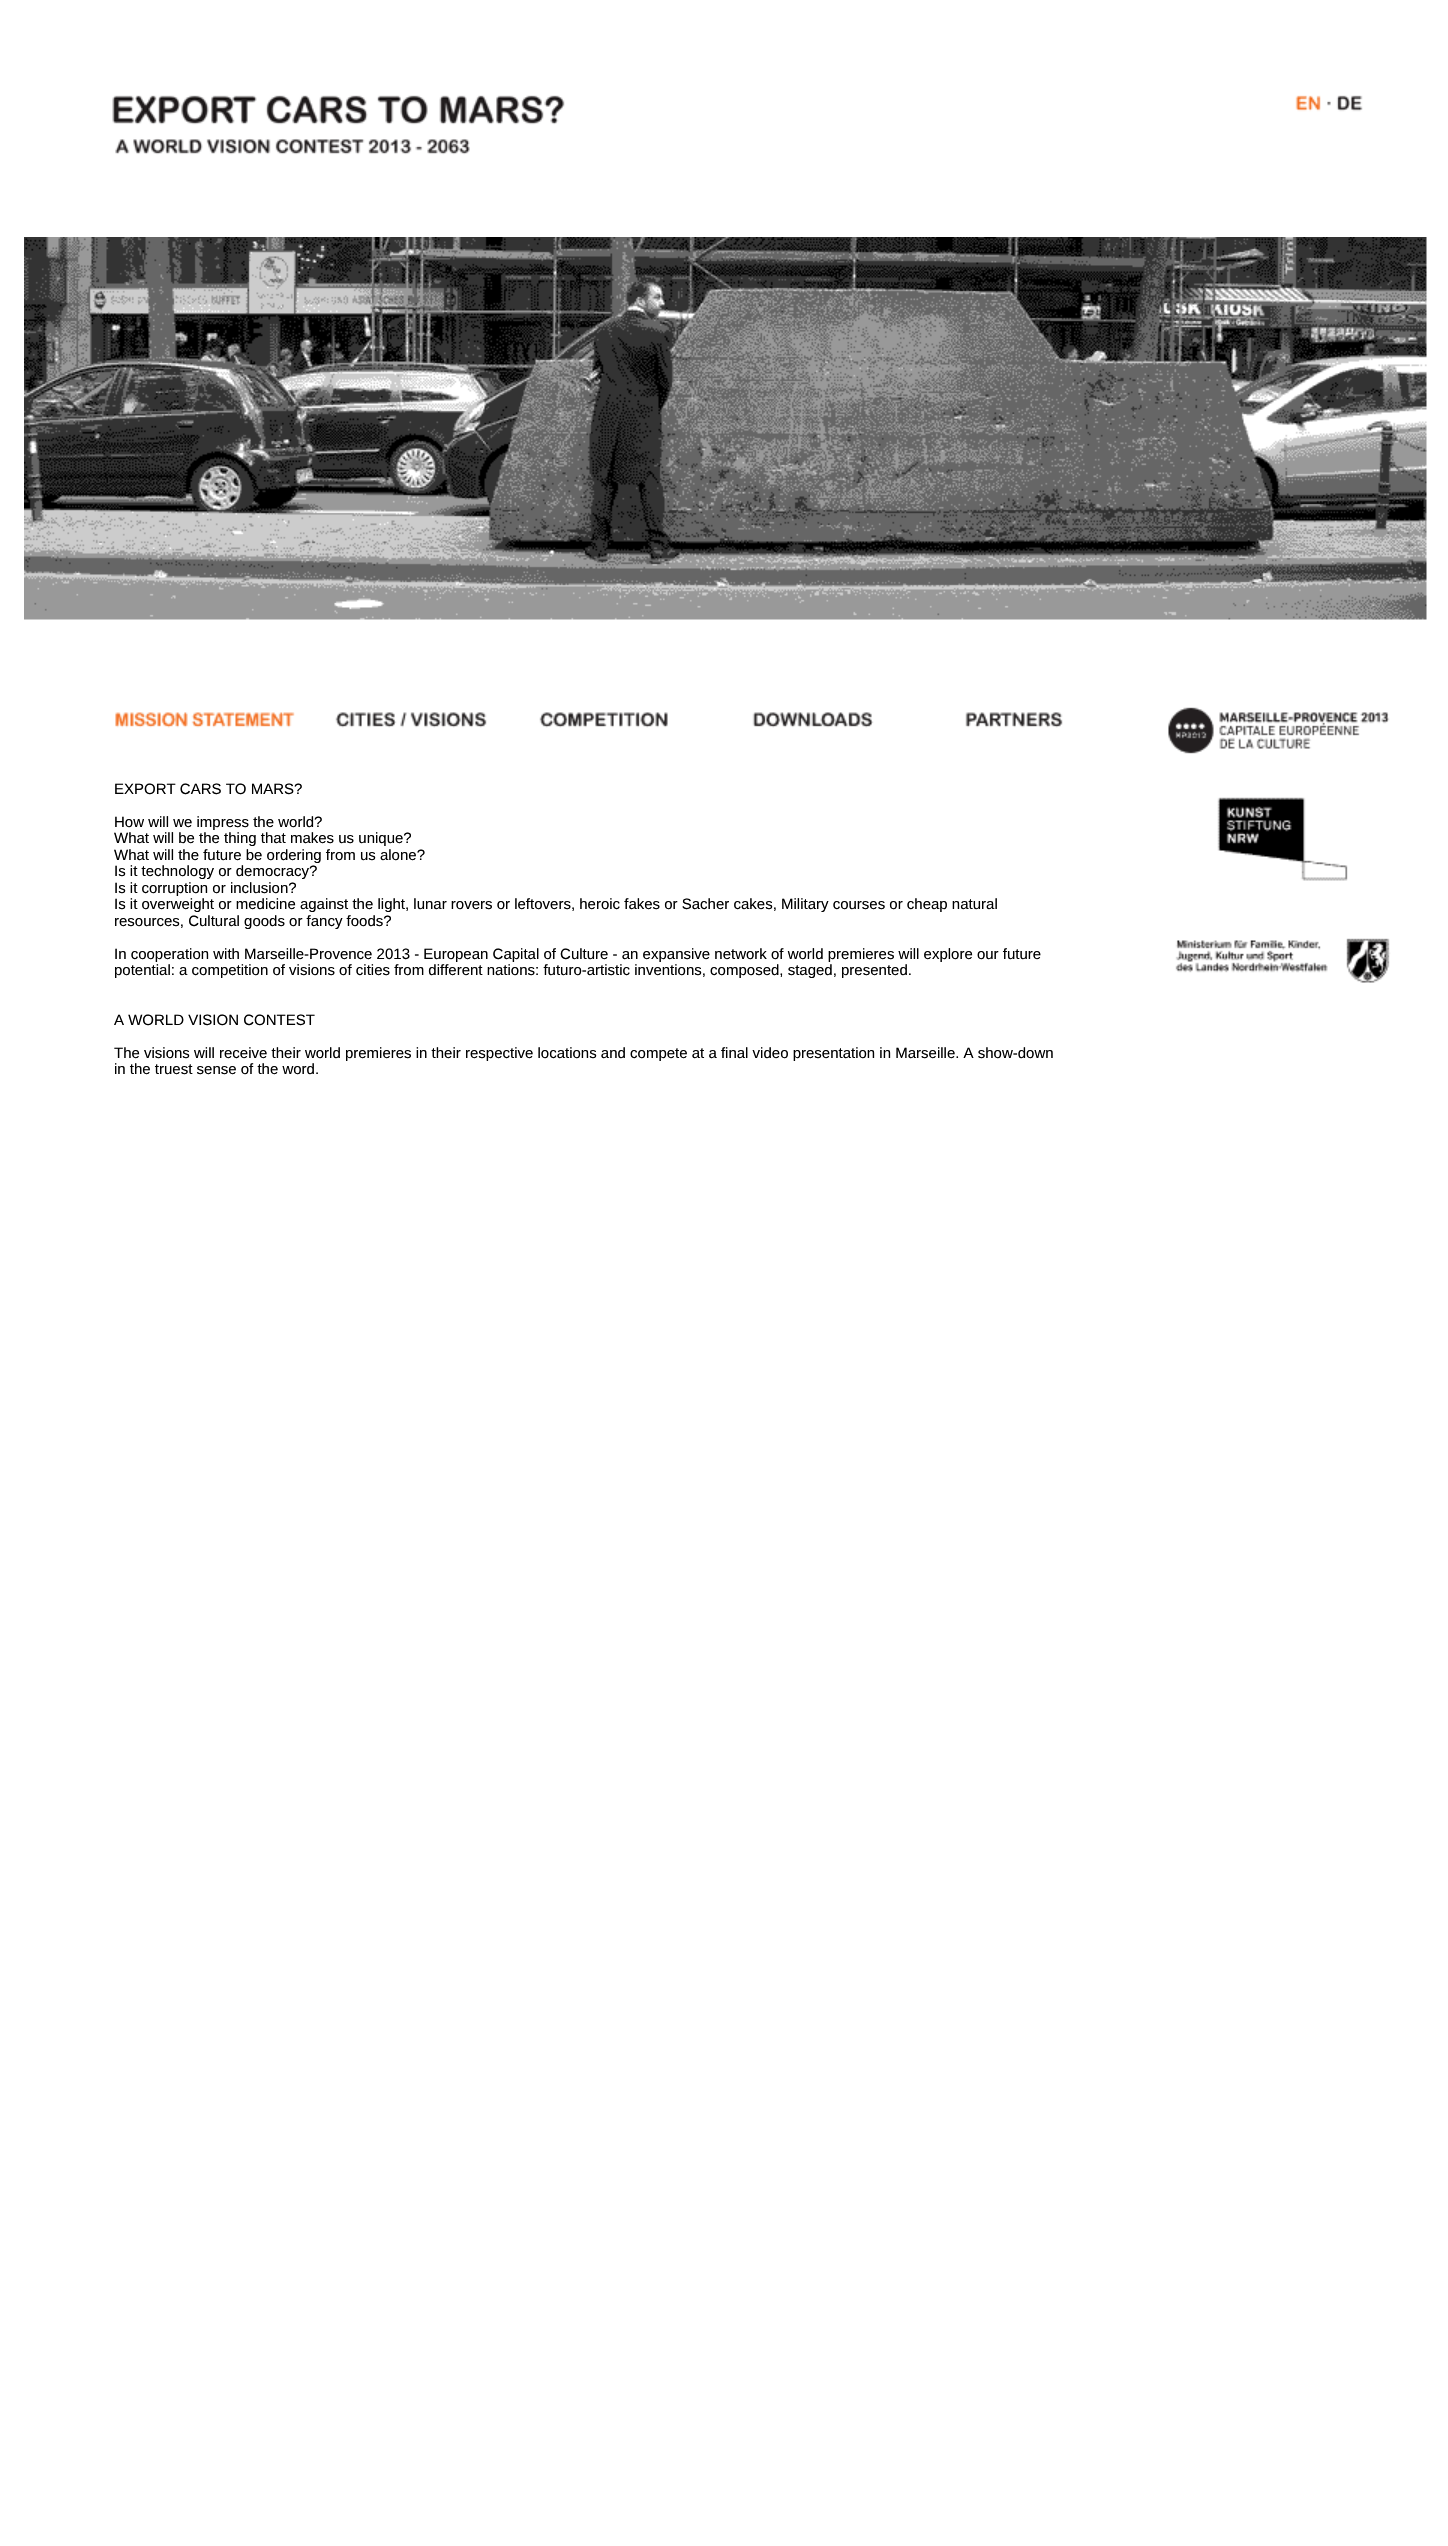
#include "include/core/SkBlurTypes.h"
#include "include/core/SkCanvas.h"
#include "include/core/SkData.h"
#include "include/core/SkFont.h"
#include "include/core/SkFontMgr.h"
#include "include/core/SkImage.h"
#include "include/core/SkMaskFilter.h"
#include "include/core/SkPaint.h"
#include "include/core/SkPathBuilder.h"
#include "include/core/SkTextBlob.h"
#include "include/effects/SkDashPathEffect.h"
#include "include/effects/SkGradientShader.h"
#include "include/utils/SkParsePath.h"

extern sk_sp<SkFontMgr> fontMgr;

void draw(SkCanvas* canvas) {
    SkPaint p;
    p.setAntiAlias(true);
    auto font = [&](const char* family, int weight, float size, bool italic = false) {
        SkFontStyle style(weight, SkFontStyle::kNormal_Width,
            italic ? SkFontStyle::kItalic_Slant : SkFontStyle::kUpright_Slant);
        SkFont result(fontMgr->matchFamilyStyle(family, style), size);
        result.setSubpixel(true);
        return result;
    };
    auto drawPhoto = [&](const char* path, float l, float t, float r, float b) {
        auto image = SkImages::DeferredFromEncodedData(SkData::MakeFromFileName(path));
        canvas->drawImageRect(image, SkRect::MakeLTRB(l, t, r, b), SkSamplingOptions());
    };
    canvas->clear(0xFFFFFFFF);
    drawPhoto("media/1.png", 115, 707, 1391, 983);
    drawPhoto("media/2.png", 112, 95, 1363, 155);
    drawPhoto("media/3.png", 24, 237, 1427, 620);
    auto font1 = font("Liberation Sans", 400, 15);
    p.setColor(0xFF000000);
    {
        const struct { const char* s; float x, y; } items[] = {
            {"EXPORT CARS TO MARS?", 114, 794},
            {"How will we impress the world?", 114, 827},
            {"What will be the thing that makes us unique?", 114, 843},
            {"What will the future be ordering from us alone?", 114, 860},
            {"Is it technology or democracy?", 114, 876},
            {"Is it corruption or inclusion?", 114, 893},
            {"Is it overweight or medicine against the light, lunar rovers or leftovers, heroic fakes or Sacher cakes, Military courses or cheap natural", 114, 909},
            {"resources, Cultural goods or fancy foods?", 114, 926},
            {"In cooperation with Marseille-Provence 2013 - European Capital of Culture - an expansive network of world premieres will explore our future", 114, 959},
            {"potential: a competition of visions of cities from different nations: futuro-artistic inventions, composed, staged, presented.", 114, 975},
            {"A WORLD VISION CONTEST", 114, 1025},
            {"The visions will receive their world premieres in their respective locations and compete at a final video presentation in Marseille. A show-down", 114, 1058},
            {"in the truest sense of the word.", 114, 1074},
        };
        for (auto [s, x, y] : items) {
            canvas->drawString(s, x, y, font1, p);
        }
    }
}
